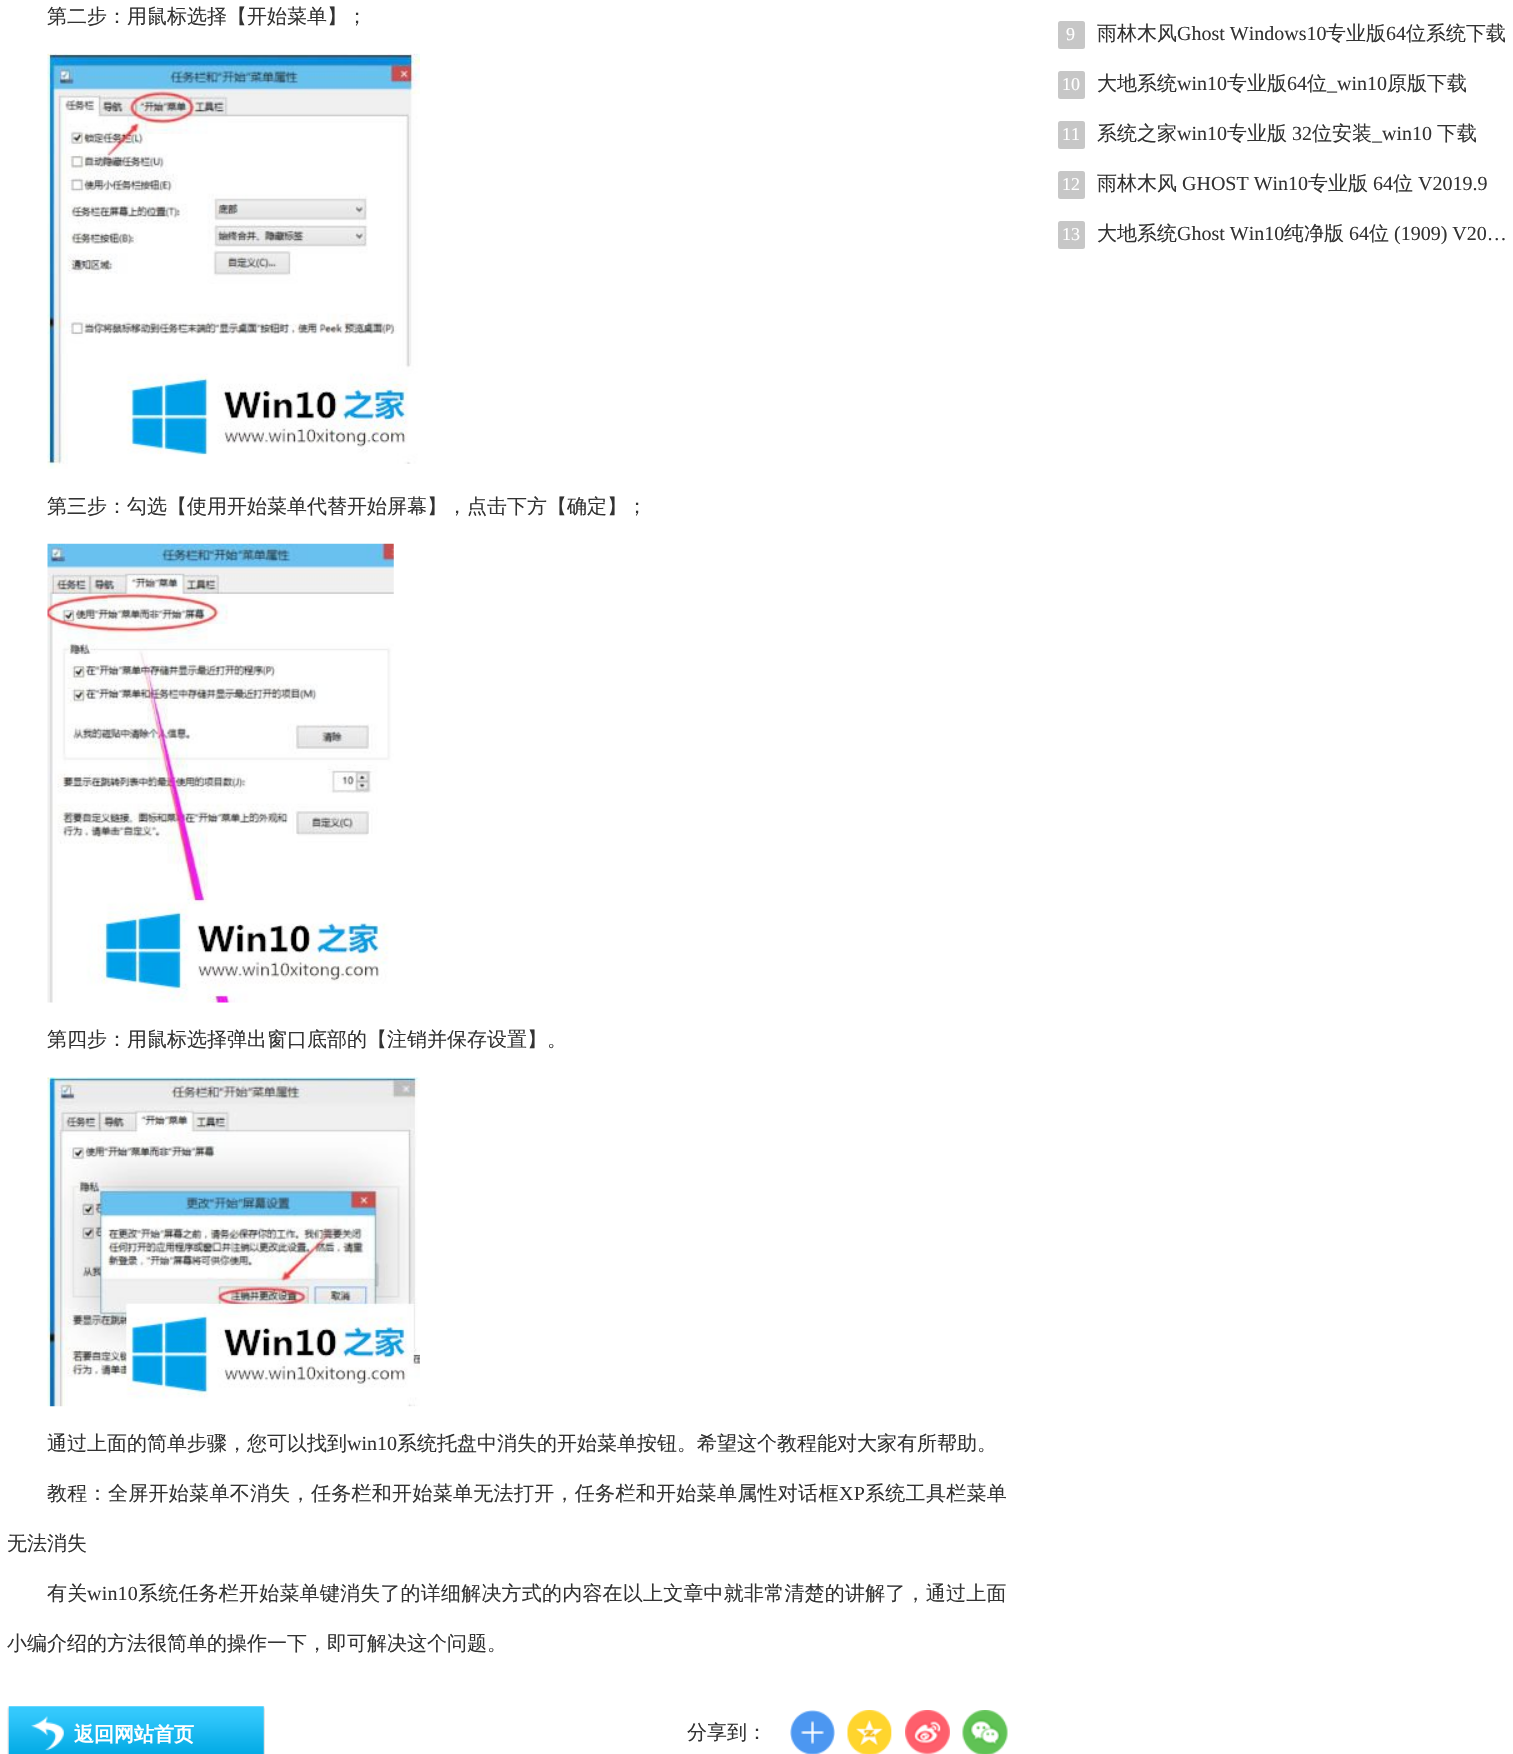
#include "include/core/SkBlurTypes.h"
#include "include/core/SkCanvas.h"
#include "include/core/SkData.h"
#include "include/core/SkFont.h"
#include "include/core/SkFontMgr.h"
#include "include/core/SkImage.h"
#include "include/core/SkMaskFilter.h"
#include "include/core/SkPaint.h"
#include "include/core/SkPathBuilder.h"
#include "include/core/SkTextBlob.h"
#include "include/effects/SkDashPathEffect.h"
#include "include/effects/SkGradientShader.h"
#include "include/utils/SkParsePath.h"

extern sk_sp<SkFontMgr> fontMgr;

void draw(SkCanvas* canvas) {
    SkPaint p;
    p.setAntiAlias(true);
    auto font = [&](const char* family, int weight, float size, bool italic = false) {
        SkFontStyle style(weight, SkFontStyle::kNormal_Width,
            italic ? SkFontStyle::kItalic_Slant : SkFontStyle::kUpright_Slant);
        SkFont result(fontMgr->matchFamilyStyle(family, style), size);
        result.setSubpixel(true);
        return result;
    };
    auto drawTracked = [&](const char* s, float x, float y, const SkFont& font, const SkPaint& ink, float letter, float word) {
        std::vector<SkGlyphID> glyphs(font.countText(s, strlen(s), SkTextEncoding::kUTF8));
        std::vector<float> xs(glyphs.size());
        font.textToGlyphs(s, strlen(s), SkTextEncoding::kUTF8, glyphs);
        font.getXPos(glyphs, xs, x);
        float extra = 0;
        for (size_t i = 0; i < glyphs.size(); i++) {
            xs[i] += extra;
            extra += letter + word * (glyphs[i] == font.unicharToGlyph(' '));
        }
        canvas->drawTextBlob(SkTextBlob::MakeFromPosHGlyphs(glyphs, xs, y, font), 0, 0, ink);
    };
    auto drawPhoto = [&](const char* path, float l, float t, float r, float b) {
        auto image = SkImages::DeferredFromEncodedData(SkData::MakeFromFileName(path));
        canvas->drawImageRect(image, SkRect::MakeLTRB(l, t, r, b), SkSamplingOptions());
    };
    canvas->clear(0xFFFFFFFF);
    auto font1 = font("WenQuanYi Zen Hei", 500, 20);
    p.setColor(0xFF333333);
    canvas->drawString("第二步：用鼠标选择【开始菜单】；", 47, 23, font1, p);
    drawPhoto("media/1.png", 47, 53, 420, 469);
    canvas->drawString("第三步：勾选【使用开始菜单代替开始屏幕】，点击下方【确定】；", 47, 513, font1, p);
    drawPhoto("media/2.png", 47, 543, 394, 1003);
    canvas->drawString("第四步：用鼠标选择弹出窗口底部的【注销并保存设置】。", 47, 1046, font1, p);
    drawPhoto("media/3.png", 47, 1077, 420, 1407);
    canvas->drawString("通过上面的简单步骤，您可以找到", 47, 1450, font1, p);
    auto font2 = font("Liberation Serif", 400, 20);
    canvas->drawString("win10", 347, 1450, font2, p);
    canvas->drawString("系统托盘中消失的开始菜单按钮。希望这个教程能对大家有所帮助。", 397, 1450, font1, p);
    drawTracked("教程：全屏开始菜单不消失，任务栏和开始菜单无法打开，任务栏和开始菜单属性对话框", 47, 1500, font1, p, 0.3f, 0);
    drawTracked("XP", 839, 1500, font2, p, 0.3f, 0);
    drawTracked("系统工具栏菜单", 865, 1500, font1, p, 0.3f, 0);
    canvas->drawString("无法消失", 7, 1550, font1, p);
    drawTracked("有关", 47, 1600, font1, p, 0.2f, 0);
    drawTracked("win10", 87, 1600, font2, p, 0.2f, 0);
    drawTracked("系统任务栏开始菜单键消失了的详细解决方式的内容在以上文章中就非常清楚的讲解了，通过上面", 138, 1600, font1, p, 0.2f, 0);
    canvas->drawString("小编介绍的方法很简单的操作一下，即可解决这个问题。", 7, 1650, font1, p);
    drawPhoto("media/4.png", 7, 1706, 265, 1754);
    auto font3 = font("WenQuanYi Zen Hei", 700, 20);
    p.setColor(0xFFFFFFFF);
    canvas->drawString("返回网站首页", 74, 1741, font3, p);
    p.setColor(0xFF333333);
    canvas->drawString("分享到：", 687, 1739, font1, p);
    drawPhoto("media/5.png", 790, 1710, 835, 1754);
    drawPhoto("media/6.png", 847, 1710, 892, 1754);
    drawPhoto("media/7.png", 905, 1710, 950, 1754);
    drawPhoto("media/8.png", 962, 1710, 1008, 1754);
    p.setColor(0xFFC7C7C7);
    canvas->drawRoundRect(SkRect::MakeLTRB(1058, 21, 1085, 49), 2.5f, 2.5f, p);
    auto font4 = font("Liberation Serif", 400, 18);
    p.setColor(0xFFFFFFFF);
    canvas->drawString("9", 1066, 40, font4, p);
    p.setColor(0xFF333333);
    canvas->drawString("雨林木风", 1097, 40, font1, p);
    canvas->drawString("Ghost Windows10", 1177, 40, font2, p);
    canvas->drawString("专业版", 1326, 40, font1, p);
    canvas->drawString("64", 1386, 40, font2, p);
    canvas->drawString("位系统下载", 1406, 40, font1, p);
    p.setColor(0xFFC7C7C7);
    canvas->drawRoundRect(SkRect::MakeLTRB(1058, 71, 1085, 99), 2.5f, 2.5f, p);
    p.setColor(0xFFFFFFFF);
    canvas->drawString("10", 1062, 90, font4, p);
    p.setColor(0xFF333333);
    canvas->drawString("大地系统", 1097, 90, font1, p);
    canvas->drawString("win10", 1177, 90, font2, p);
    canvas->drawString("专业版", 1227, 90, font1, p);
    canvas->drawString("64", 1287, 90, font2, p);
    canvas->drawString("位", 1307, 90, font1, p);
    canvas->drawString("_win10", 1327, 90, font2, p);
    canvas->drawString("原版下载", 1387, 90, font1, p);
    p.setColor(0xFFC7C7C7);
    canvas->drawRoundRect(SkRect::MakeLTRB(1058, 121, 1085, 149), 2.5f, 2.5f, p);
    p.setColor(0xFFFFFFFF);
    canvas->drawString("11", 1062, 140, font4, p);
    p.setColor(0xFF333333);
    canvas->drawString("系统之家", 1097, 140, font1, p);
    canvas->drawString("win10", 1177, 140, font2, p);
    canvas->drawString("专业版", 1227, 140, font1, p);
    canvas->drawString("32", 1292, 140, font2, p);
    canvas->drawString("位安装", 1312, 140, font1, p);
    canvas->drawString("_win10", 1372, 140, font2, p);
    canvas->drawString("下载", 1437, 140, font1, p);
    p.setColor(0xFFC7C7C7);
    canvas->drawRoundRect(SkRect::MakeLTRB(1058, 171, 1085, 199), 2.5f, 2.5f, p);
    p.setColor(0xFFFFFFFF);
    canvas->drawString("12", 1062, 190, font4, p);
    p.setColor(0xFF333333);
    canvas->drawString("雨林木风", 1097, 190, font1, p);
    canvas->drawString("GHOST Win10", 1182, 190, font2, p);
    canvas->drawString("专业版", 1308, 190, font1, p);
    canvas->drawString("64", 1373, 190, font2, p);
    canvas->drawString("位", 1393, 190, font1, p);
    canvas->drawString("V2019.9", 1418, 190, font2, p);
    p.setColor(0xFFC7C7C7);
    canvas->drawRoundRect(SkRect::MakeLTRB(1058, 221, 1085, 249), 2.5f, 2.5f, p);
    p.setColor(0xFFFFFFFF);
    canvas->drawString("13", 1062, 240, font4, p);
    p.setColor(0xFF333333);
    canvas->drawString("大地系统", 1097, 240, font1, p);
    canvas->drawString("Ghost Win10", 1177, 240, font2, p);
    canvas->drawString("纯净版", 1284, 240, font1, p);
    canvas->drawString("64", 1349, 240, font2, p);
    canvas->drawString("位", 1369, 240, font1, p);
    canvas->drawString("(1909) V20…", 1394, 240, font2, p);
}
